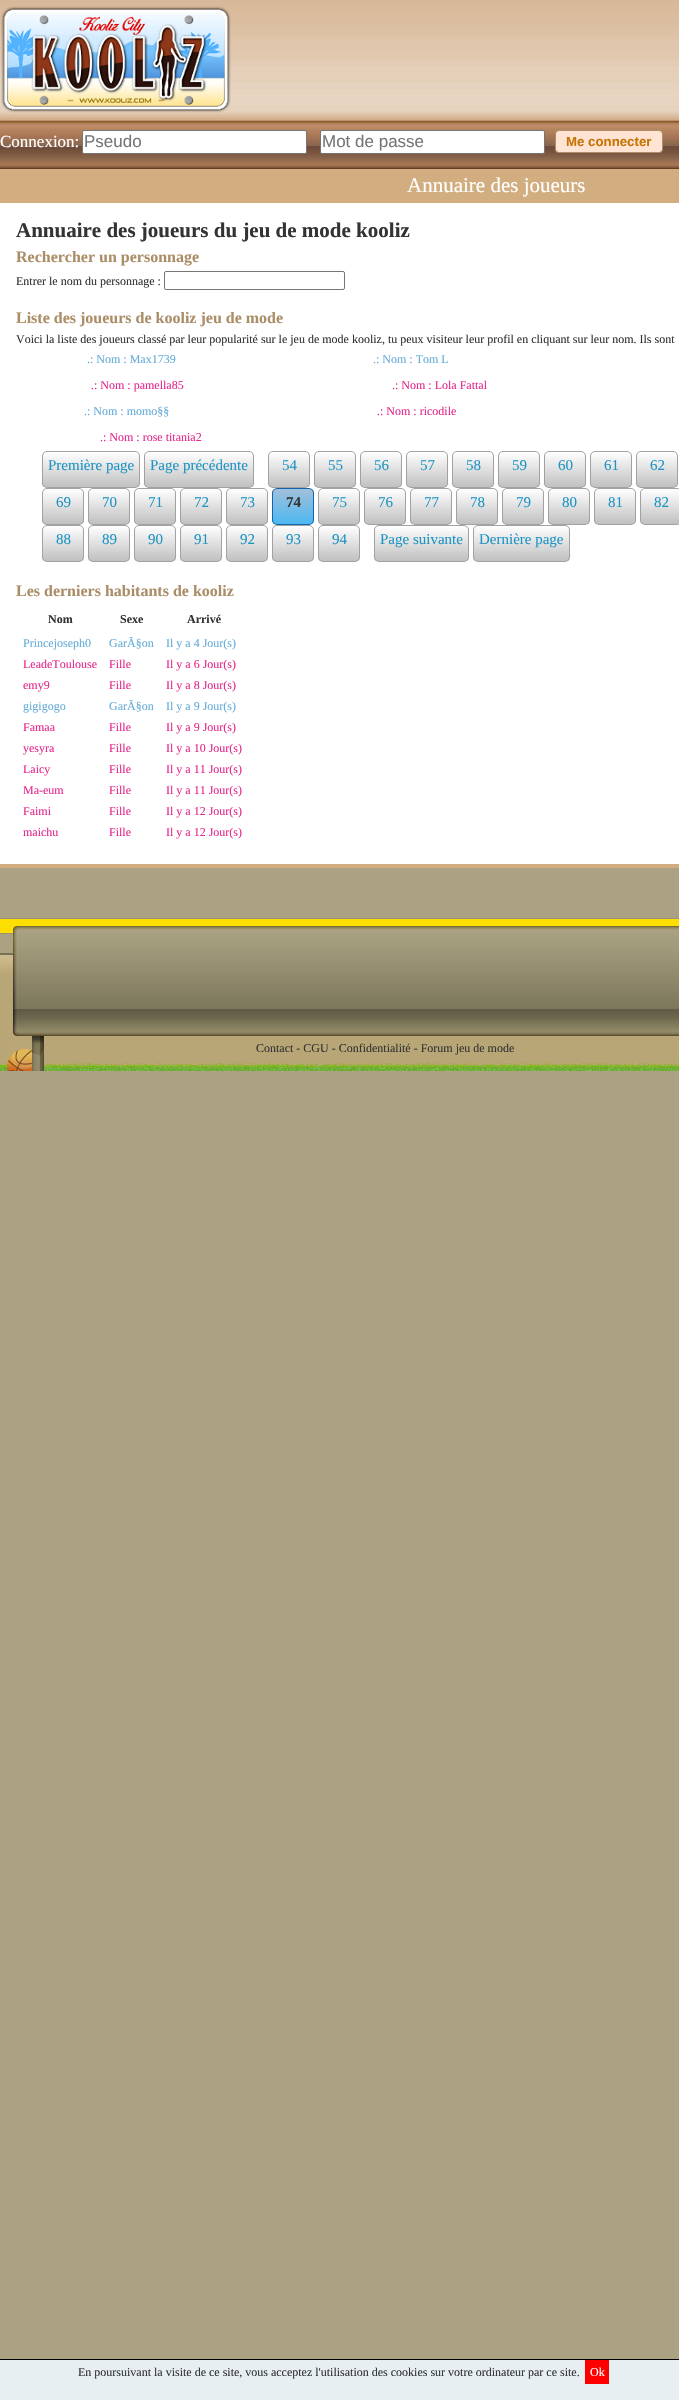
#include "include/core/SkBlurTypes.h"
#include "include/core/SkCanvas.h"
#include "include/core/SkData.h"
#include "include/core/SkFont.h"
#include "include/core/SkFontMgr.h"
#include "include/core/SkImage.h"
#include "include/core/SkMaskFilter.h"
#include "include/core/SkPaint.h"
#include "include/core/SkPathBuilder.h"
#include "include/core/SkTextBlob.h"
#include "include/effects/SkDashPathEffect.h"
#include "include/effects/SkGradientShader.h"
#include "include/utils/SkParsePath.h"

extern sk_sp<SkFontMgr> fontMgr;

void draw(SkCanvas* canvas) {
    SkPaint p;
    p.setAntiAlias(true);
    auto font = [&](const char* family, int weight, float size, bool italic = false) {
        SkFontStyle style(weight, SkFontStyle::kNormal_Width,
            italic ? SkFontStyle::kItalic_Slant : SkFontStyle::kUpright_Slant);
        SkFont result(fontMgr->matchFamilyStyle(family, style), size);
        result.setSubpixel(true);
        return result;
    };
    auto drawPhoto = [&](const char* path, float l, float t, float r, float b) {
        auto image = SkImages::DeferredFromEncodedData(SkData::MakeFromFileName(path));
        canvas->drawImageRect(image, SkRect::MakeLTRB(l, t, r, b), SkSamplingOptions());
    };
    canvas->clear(0xFFAAA282);
    drawPhoto("media/1.png", 0, 0, 679, 169);
    drawPhoto("media/2.png", 1, 6, 231, 113);
    auto font1 = font("Liberation Serif", 400, 17);
    p.setColor(0xFFFFFFFF);
    canvas->drawString("Connexion:", 0, 147, font1, p);
    canvas->drawRoundRect(SkRect::MakeLTRB(82.5f, 130.5f, 306.5f, 153.5f), 1.5f, 1.5f, p);
    p.setStyle(SkPaint::kStroke_Style);
    p.setStrokeWidth(1);
    p.setColor(0xFF767676);
    canvas->drawRoundRect(SkRect::MakeLTRB(82.5f, 130.5f, 306.5f, 153.5f), 1.5f, 1.5f, p);
    auto font2 = font("Liberation Sans", 400, 17);
    p.setStyle(SkPaint::kFill_Style);
    p.setColor(0xFF757575);
    canvas->drawString("Pseudo", 84, 147, font2, p);
    p.setColor(0xFFFFFFFF);
    canvas->drawRoundRect(SkRect::MakeLTRB(320.5f, 130.5f, 544.5f, 153.5f), 1.5f, 1.5f, p);
    p.setStyle(SkPaint::kStroke_Style);
    p.setColor(0xFF767676);
    canvas->drawRoundRect(SkRect::MakeLTRB(320.5f, 130.5f, 544.5f, 153.5f), 1.5f, 1.5f, p);
    p.setStyle(SkPaint::kFill_Style);
    p.setColor(0xFF757575);
    canvas->drawString("Mot de passe", 322, 147, font2, p);
    p.setColor(0xFFFFE4D4);
    canvas->drawRoundRect(SkRect::MakeLTRB(555.5f, 130.5f, 662.5f, 152.5f), 3.5f, 3.5f, p);
    p.setStyle(SkPaint::kStroke_Style);
    p.setColor(0xFFAB8E68);
    canvas->drawRoundRect(SkRect::MakeLTRB(555.5f, 130.5f, 662.5f, 152.5f), 3.5f, 3.5f, p);
    auto font3 = font("Liberation Sans", 700, 13.25f);
    p.setStyle(SkPaint::kFill_Style);
    p.setColor(0xFFC77405);
    canvas->drawString("Me connecter", 566, 146, font3, p);
    p.setColor(0xFFFFFFFF);
    canvas->drawRect(SkRect::MakeLTRB(0, 203, 679, 864), p);
    p.setStyle(SkPaint::kStroke_Style);
    p.setStrokeWidth(4);
    p.setColor(0xFFD1AD7F);
    canvas->drawRect(SkRect::MakeLTRB(-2, 171, 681, 866), p);
    p.setStyle(SkPaint::kFill_Style);
    canvas->drawRect(SkRect::MakeLTRB(0, 173, 679, 203), p);
    auto font4 = font("Liberation Serif", 400, 21);
    p.setColor(0xFFFFFFFF);
    canvas->drawString("Annuaire des joueurs", 407, 192, font4, p);
    auto font5 = font("Liberation Serif", 700, 21);
    p.setColor(0xFF333333);
    canvas->drawString("Annuaire des joueurs du jeu de mode kooliz", 16, 237, font5, p);
    auto font6 = font("Liberation Serif", 700, 16);
    p.setColor(0xFFAB8E68);
    canvas->drawString("Rechercher un personnage", 16, 262, font6, p);
    auto font7 = font("Liberation Serif", 400, 12);
    p.setColor(0xFF333333);
    canvas->drawString("Entrer le nom du personnage :", 16, 285, font7, p);
    p.setStyle(SkPaint::kStroke_Style);
    p.setStrokeWidth(1);
    p.setColor(0xFF767676);
    canvas->drawRoundRect(SkRect::MakeLTRB(164.5f, 271.5f, 344.5f, 289.5f), 1.5f, 1.5f, p);
    p.setStyle(SkPaint::kFill_Style);
    p.setColor(0xFFAB8E68);
    canvas->drawString("Liste des joueurs de kooliz jeu de mode", 16, 323, font6, p);
    p.setColor(0xFF333333);
    canvas->drawString("Voici la liste des joueurs classé par leur popularité sur le jeu de mode kooliz, tu peux visiteur leur profil en cliquant sur leur nom. Ils sont", 16, 343, font7, p);
    p.setColor(0xFF65ADD8);
    canvas->drawString(".: Nom : Max1739", 87, 363, font7, p);
    canvas->drawString(".: Nom : Tom L", 373, 363, font7, p);
    p.setColor(0xFFE5278C);
    canvas->drawString(".: Nom : pamella85", 91, 389, font7, p);
    canvas->drawString(".: Nom : Lola Fattal", 392, 389, font7, p);
    p.setColor(0xFF65ADD8);
    canvas->drawString(".: Nom : momo§§", 84, 415, font7, p);
    p.setColor(0xFFE5278C);
    canvas->drawString(".: Nom : ricodile", 377, 415, font7, p);
    canvas->drawString(".: Nom : rose titania2", 100, 441, font7, p);
    canvas->save();
    canvas->clipPath(SkPathBuilder().moveTo(47, 451).lineTo(135, 451).cubicTo(138, 451, 140, 453, 140, 456).lineTo(140, 483).cubicTo(140, 486, 138, 488, 135, 488).lineTo(47, 488).cubicTo(44, 488, 42, 486, 42, 483).lineTo(42, 456).cubicTo(42, 453, 44, 451, 47, 451).close().detach(), true);
    {
        const SkColor colors[] = {0xFFFFFFFF, 0xFFC0C0C0};
        const float stops[] = {0, 1};
        const SkPoint ends[] = {{91, 452}, {91, 487}};
        p.setShader(SkGradientShader::MakeLinear(ends, colors, stops, 2, SkTileMode::kClamp));
        p.setAlpha(255);
    }
    canvas->drawRect(SkRect::MakeLTRB(42, 452, 140, 487), p);
    canvas->restore();
    p.setStyle(SkPaint::kStroke_Style);
    p.setShader(nullptr);
    p.setColor(0xFFA2A2A2);
    canvas->drawRoundRect(SkRect::MakeLTRB(42.5f, 451.5f, 139.5f, 487.5f), 4.5f, 4.5f, p);
    auto font8 = font("Liberation Serif", 400, 15);
    p.setStyle(SkPaint::kFill_Style);
    p.setColor(0xFF1C94C4);
    canvas->drawString("Première page", 48, 470, font8, p);
    canvas->save();
    canvas->clipPath(SkPathBuilder().moveTo(149, 451).lineTo(249, 451).cubicTo(252, 451, 254, 453, 254, 456).lineTo(254, 483).cubicTo(254, 486, 252, 488, 249, 488).lineTo(149, 488).cubicTo(146, 488, 144, 486, 144, 483).lineTo(144, 456).cubicTo(144, 453, 146, 451, 149, 451).close().detach(), true);
    {
        const SkColor colors[] = {0xFFFFFFFF, 0xFFC0C0C0};
        const float stops[] = {0, 1};
        const SkPoint ends[] = {{199, 452}, {199, 487}};
        p.setShader(SkGradientShader::MakeLinear(ends, colors, stops, 2, SkTileMode::kClamp));
        p.setAlpha(255);
    }
    canvas->drawRect(SkRect::MakeLTRB(144, 452, 254, 487), p);
    canvas->restore();
    p.setStyle(SkPaint::kStroke_Style);
    p.setShader(nullptr);
    p.setColor(0xFFA2A2A2);
    canvas->drawRoundRect(SkRect::MakeLTRB(144.5f, 451.5f, 253.5f, 487.5f), 4.5f, 4.5f, p);
    p.setStyle(SkPaint::kFill_Style);
    p.setColor(0xFF1C94C4);
    canvas->drawString("Page précédente", 150, 470, font8, p);
    canvas->save();
    canvas->clipPath(SkPathBuilder().moveTo(273, 451).lineTo(305, 451).cubicTo(308, 451, 310, 453, 310, 456).lineTo(310, 483).cubicTo(310, 486, 308, 488, 305, 488).lineTo(273, 488).cubicTo(270, 488, 268, 486, 268, 483).lineTo(268, 456).cubicTo(268, 453, 270, 451, 273, 451).close().detach(), true);
    {
        const SkColor colors[] = {0xFFFFFFFF, 0xFFC0C0C0};
        const float stops[] = {0, 1};
        const SkPoint ends[] = {{289, 452}, {289, 487}};
        p.setShader(SkGradientShader::MakeLinear(ends, colors, stops, 2, SkTileMode::kClamp));
        p.setAlpha(255);
    }
    canvas->drawRect(SkRect::MakeLTRB(268, 452, 310, 487), p);
    canvas->restore();
    p.setStyle(SkPaint::kStroke_Style);
    p.setShader(nullptr);
    p.setColor(0xFFA2A2A2);
    canvas->drawRoundRect(SkRect::MakeLTRB(268.5f, 451.5f, 309.5f, 487.5f), 4.5f, 4.5f, p);
    p.setStyle(SkPaint::kFill_Style);
    p.setColor(0xFF1C94C4);
    canvas->drawString("54", 282, 470, font8, p);
    canvas->save();
    canvas->clipPath(SkPathBuilder().moveTo(319, 451).lineTo(351, 451).cubicTo(354, 451, 356, 453, 356, 456).lineTo(356, 483).cubicTo(356, 486, 354, 488, 351, 488).lineTo(319, 488).cubicTo(316, 488, 314, 486, 314, 483).lineTo(314, 456).cubicTo(314, 453, 316, 451, 319, 451).close().detach(), true);
    {
        const SkColor colors[] = {0xFFFFFFFF, 0xFFC0C0C0};
        const float stops[] = {0, 1};
        const SkPoint ends[] = {{335, 452}, {335, 487}};
        p.setShader(SkGradientShader::MakeLinear(ends, colors, stops, 2, SkTileMode::kClamp));
        p.setAlpha(255);
    }
    canvas->drawRect(SkRect::MakeLTRB(314, 452, 356, 487), p);
    canvas->restore();
    p.setStyle(SkPaint::kStroke_Style);
    p.setShader(nullptr);
    p.setColor(0xFFA2A2A2);
    canvas->drawRoundRect(SkRect::MakeLTRB(314.5f, 451.5f, 355.5f, 487.5f), 4.5f, 4.5f, p);
    p.setStyle(SkPaint::kFill_Style);
    p.setColor(0xFF1C94C4);
    canvas->drawString("55", 328, 470, font8, p);
    canvas->save();
    canvas->clipPath(SkPathBuilder().moveTo(365, 451).lineTo(397, 451).cubicTo(400, 451, 402, 453, 402, 456).lineTo(402, 483).cubicTo(402, 486, 400, 488, 397, 488).lineTo(365, 488).cubicTo(362, 488, 360, 486, 360, 483).lineTo(360, 456).cubicTo(360, 453, 362, 451, 365, 451).close().detach(), true);
    {
        const SkColor colors[] = {0xFFFFFFFF, 0xFFC0C0C0};
        const float stops[] = {0, 1};
        const SkPoint ends[] = {{381, 452}, {381, 487}};
        p.setShader(SkGradientShader::MakeLinear(ends, colors, stops, 2, SkTileMode::kClamp));
        p.setAlpha(255);
    }
    canvas->drawRect(SkRect::MakeLTRB(360, 452, 402, 487), p);
    canvas->restore();
    p.setStyle(SkPaint::kStroke_Style);
    p.setShader(nullptr);
    p.setColor(0xFFA2A2A2);
    canvas->drawRoundRect(SkRect::MakeLTRB(360.5f, 451.5f, 401.5f, 487.5f), 4.5f, 4.5f, p);
    p.setStyle(SkPaint::kFill_Style);
    p.setColor(0xFF1C94C4);
    canvas->drawString("56", 374, 470, font8, p);
    canvas->save();
    canvas->clipPath(SkPathBuilder().moveTo(411, 451).lineTo(443, 451).cubicTo(446, 451, 448, 453, 448, 456).lineTo(448, 483).cubicTo(448, 486, 446, 488, 443, 488).lineTo(411, 488).cubicTo(408, 488, 406, 486, 406, 483).lineTo(406, 456).cubicTo(406, 453, 408, 451, 411, 451).close().detach(), true);
    {
        const SkColor colors[] = {0xFFFFFFFF, 0xFFC0C0C0};
        const float stops[] = {0, 1};
        const SkPoint ends[] = {{427, 452}, {427, 487}};
        p.setShader(SkGradientShader::MakeLinear(ends, colors, stops, 2, SkTileMode::kClamp));
        p.setAlpha(255);
    }
    canvas->drawRect(SkRect::MakeLTRB(406, 452, 448, 487), p);
    canvas->restore();
    p.setStyle(SkPaint::kStroke_Style);
    p.setShader(nullptr);
    p.setColor(0xFFA2A2A2);
    canvas->drawRoundRect(SkRect::MakeLTRB(406.5f, 451.5f, 447.5f, 487.5f), 4.5f, 4.5f, p);
    p.setStyle(SkPaint::kFill_Style);
    p.setColor(0xFF1C94C4);
    canvas->drawString("57", 420, 470, font8, p);
    canvas->save();
    canvas->clipPath(SkPathBuilder().moveTo(457, 451).lineTo(489, 451).cubicTo(492, 451, 494, 453, 494, 456).lineTo(494, 483).cubicTo(494, 486, 492, 488, 489, 488).lineTo(457, 488).cubicTo(454, 488, 452, 486, 452, 483).lineTo(452, 456).cubicTo(452, 453, 454, 451, 457, 451).close().detach(), true);
    {
        const SkColor colors[] = {0xFFFFFFFF, 0xFFC0C0C0};
        const float stops[] = {0, 1};
        const SkPoint ends[] = {{473, 452}, {473, 487}};
        p.setShader(SkGradientShader::MakeLinear(ends, colors, stops, 2, SkTileMode::kClamp));
        p.setAlpha(255);
    }
    canvas->drawRect(SkRect::MakeLTRB(452, 452, 494, 487), p);
    canvas->restore();
    p.setStyle(SkPaint::kStroke_Style);
    p.setShader(nullptr);
    p.setColor(0xFFA2A2A2);
    canvas->drawRoundRect(SkRect::MakeLTRB(452.5f, 451.5f, 493.5f, 487.5f), 4.5f, 4.5f, p);
    p.setStyle(SkPaint::kFill_Style);
    p.setColor(0xFF1C94C4);
    canvas->drawString("58", 466, 470, font8, p);
    canvas->save();
    canvas->clipPath(SkPathBuilder().moveTo(503, 451).lineTo(535, 451).cubicTo(538, 451, 540, 453, 540, 456).lineTo(540, 483).cubicTo(540, 486, 538, 488, 535, 488).lineTo(503, 488).cubicTo(500, 488, 498, 486, 498, 483).lineTo(498, 456).cubicTo(498, 453, 500, 451, 503, 451).close().detach(), true);
    {
        const SkColor colors[] = {0xFFFFFFFF, 0xFFC0C0C0};
        const float stops[] = {0, 1};
        const SkPoint ends[] = {{519, 452}, {519, 487}};
        p.setShader(SkGradientShader::MakeLinear(ends, colors, stops, 2, SkTileMode::kClamp));
        p.setAlpha(255);
    }
    canvas->drawRect(SkRect::MakeLTRB(498, 452, 540, 487), p);
    canvas->restore();
    p.setStyle(SkPaint::kStroke_Style);
    p.setShader(nullptr);
    p.setColor(0xFFA2A2A2);
    canvas->drawRoundRect(SkRect::MakeLTRB(498.5f, 451.5f, 539.5f, 487.5f), 4.5f, 4.5f, p);
    p.setStyle(SkPaint::kFill_Style);
    p.setColor(0xFF1C94C4);
    canvas->drawString("59", 512, 470, font8, p);
    canvas->save();
    canvas->clipPath(SkPathBuilder().moveTo(549, 451).lineTo(581, 451).cubicTo(584, 451, 586, 453, 586, 456).lineTo(586, 483).cubicTo(586, 486, 584, 488, 581, 488).lineTo(549, 488).cubicTo(546, 488, 544, 486, 544, 483).lineTo(544, 456).cubicTo(544, 453, 546, 451, 549, 451).close().detach(), true);
    {
        const SkColor colors[] = {0xFFFFFFFF, 0xFFC0C0C0};
        const float stops[] = {0, 1};
        const SkPoint ends[] = {{565, 452}, {565, 487}};
        p.setShader(SkGradientShader::MakeLinear(ends, colors, stops, 2, SkTileMode::kClamp));
        p.setAlpha(255);
    }
    canvas->drawRect(SkRect::MakeLTRB(544, 452, 586, 487), p);
    canvas->restore();
    p.setStyle(SkPaint::kStroke_Style);
    p.setShader(nullptr);
    p.setColor(0xFFA2A2A2);
    canvas->drawRoundRect(SkRect::MakeLTRB(544.5f, 451.5f, 585.5f, 487.5f), 4.5f, 4.5f, p);
    p.setStyle(SkPaint::kFill_Style);
    p.setColor(0xFF1C94C4);
    canvas->drawString("60", 558, 470, font8, p);
    canvas->save();
    canvas->clipPath(SkPathBuilder().moveTo(595, 451).lineTo(627, 451).cubicTo(630, 451, 632, 453, 632, 456).lineTo(632, 483).cubicTo(632, 486, 630, 488, 627, 488).lineTo(595, 488).cubicTo(592, 488, 590, 486, 590, 483).lineTo(590, 456).cubicTo(590, 453, 592, 451, 595, 451).close().detach(), true);
    {
        const SkColor colors[] = {0xFFFFFFFF, 0xFFC0C0C0};
        const float stops[] = {0, 1};
        const SkPoint ends[] = {{611, 452}, {611, 487}};
        p.setShader(SkGradientShader::MakeLinear(ends, colors, stops, 2, SkTileMode::kClamp));
        p.setAlpha(255);
    }
    canvas->drawRect(SkRect::MakeLTRB(590, 452, 632, 487), p);
    canvas->restore();
    p.setStyle(SkPaint::kStroke_Style);
    p.setShader(nullptr);
    p.setColor(0xFFA2A2A2);
    canvas->drawRoundRect(SkRect::MakeLTRB(590.5f, 451.5f, 631.5f, 487.5f), 4.5f, 4.5f, p);
    p.setStyle(SkPaint::kFill_Style);
    p.setColor(0xFF1C94C4);
    canvas->drawString("61", 604, 470, font8, p);
    canvas->save();
    canvas->clipPath(SkPathBuilder().moveTo(641, 451).lineTo(673, 451).cubicTo(676, 451, 678, 453, 678, 456).lineTo(678, 483).cubicTo(678, 486, 676, 488, 673, 488).lineTo(641, 488).cubicTo(638, 488, 636, 486, 636, 483).lineTo(636, 456).cubicTo(636, 453, 638, 451, 641, 451).close().detach(), true);
    {
        const SkColor colors[] = {0xFFFFFFFF, 0xFFC0C0C0};
        const float stops[] = {0, 1};
        const SkPoint ends[] = {{657, 452}, {657, 487}};
        p.setShader(SkGradientShader::MakeLinear(ends, colors, stops, 2, SkTileMode::kClamp));
        p.setAlpha(255);
    }
    canvas->drawRect(SkRect::MakeLTRB(636, 452, 678, 487), p);
    canvas->restore();
    p.setStyle(SkPaint::kStroke_Style);
    p.setShader(nullptr);
    p.setColor(0xFFA2A2A2);
    canvas->drawRoundRect(SkRect::MakeLTRB(636.5f, 451.5f, 677.5f, 487.5f), 4.5f, 4.5f, p);
    p.setStyle(SkPaint::kFill_Style);
    p.setColor(0xFF1C94C4);
    canvas->drawString("62", 650, 470, font8, p);
    canvas->save();
    canvas->clipPath(SkPathBuilder().moveTo(47, 488).lineTo(79, 488).cubicTo(82, 488, 84, 490, 84, 493).lineTo(84, 520).cubicTo(84, 523, 82, 525, 79, 525).lineTo(47, 525).cubicTo(44, 525, 42, 523, 42, 520).lineTo(42, 493).cubicTo(42, 490, 44, 488, 47, 488).close().detach(), true);
    {
        const SkColor colors[] = {0xFFFFFFFF, 0xFFC0C0C0};
        const float stops[] = {0, 1};
        const SkPoint ends[] = {{63, 489}, {63, 524}};
        p.setShader(SkGradientShader::MakeLinear(ends, colors, stops, 2, SkTileMode::kClamp));
        p.setAlpha(255);
    }
    canvas->drawRect(SkRect::MakeLTRB(42, 489, 84, 524), p);
    canvas->restore();
    p.setStyle(SkPaint::kStroke_Style);
    p.setShader(nullptr);
    p.setColor(0xFFA2A2A2);
    canvas->drawRoundRect(SkRect::MakeLTRB(42.5f, 488.5f, 83.5f, 524.5f), 4.5f, 4.5f, p);
    p.setStyle(SkPaint::kFill_Style);
    p.setColor(0xFF1C94C4);
    canvas->drawString("69", 56, 507, font8, p);
    canvas->save();
    canvas->clipPath(SkPathBuilder().moveTo(93, 488).lineTo(125, 488).cubicTo(128, 488, 130, 490, 130, 493).lineTo(130, 520).cubicTo(130, 523, 128, 525, 125, 525).lineTo(93, 525).cubicTo(90, 525, 88, 523, 88, 520).lineTo(88, 493).cubicTo(88, 490, 90, 488, 93, 488).close().detach(), true);
    {
        const SkColor colors[] = {0xFFFFFFFF, 0xFFC0C0C0};
        const float stops[] = {0, 1};
        const SkPoint ends[] = {{109, 489}, {109, 524}};
        p.setShader(SkGradientShader::MakeLinear(ends, colors, stops, 2, SkTileMode::kClamp));
        p.setAlpha(255);
    }
    canvas->drawRect(SkRect::MakeLTRB(88, 489, 130, 524), p);
    canvas->restore();
    p.setStyle(SkPaint::kStroke_Style);
    p.setShader(nullptr);
    p.setColor(0xFFA2A2A2);
    canvas->drawRoundRect(SkRect::MakeLTRB(88.5f, 488.5f, 129.5f, 524.5f), 4.5f, 4.5f, p);
    p.setStyle(SkPaint::kFill_Style);
    p.setColor(0xFF1C94C4);
    canvas->drawString("70", 102, 507, font8, p);
    canvas->save();
    canvas->clipPath(SkPathBuilder().moveTo(139, 488).lineTo(171, 488).cubicTo(174, 488, 176, 490, 176, 493).lineTo(176, 520).cubicTo(176, 523, 174, 525, 171, 525).lineTo(139, 525).cubicTo(136, 525, 134, 523, 134, 520).lineTo(134, 493).cubicTo(134, 490, 136, 488, 139, 488).close().detach(), true);
    {
        const SkColor colors[] = {0xFFFFFFFF, 0xFFC0C0C0};
        const float stops[] = {0, 1};
        const SkPoint ends[] = {{155, 489}, {155, 524}};
        p.setShader(SkGradientShader::MakeLinear(ends, colors, stops, 2, SkTileMode::kClamp));
        p.setAlpha(255);
    }
    canvas->drawRect(SkRect::MakeLTRB(134, 489, 176, 524), p);
    canvas->restore();
    p.setStyle(SkPaint::kStroke_Style);
    p.setShader(nullptr);
    p.setColor(0xFFA2A2A2);
    canvas->drawRoundRect(SkRect::MakeLTRB(134.5f, 488.5f, 175.5f, 524.5f), 4.5f, 4.5f, p);
    p.setStyle(SkPaint::kFill_Style);
    p.setColor(0xFF1C94C4);
    canvas->drawString("71", 148, 507, font8, p);
    canvas->save();
    canvas->clipPath(SkPathBuilder().moveTo(185, 488).lineTo(217, 488).cubicTo(220, 488, 222, 490, 222, 493).lineTo(222, 520).cubicTo(222, 523, 220, 525, 217, 525).lineTo(185, 525).cubicTo(182, 525, 180, 523, 180, 520).lineTo(180, 493).cubicTo(180, 490, 182, 488, 185, 488).close().detach(), true);
    {
        const SkColor colors[] = {0xFFFFFFFF, 0xFFC0C0C0};
        const float stops[] = {0, 1};
        const SkPoint ends[] = {{201, 489}, {201, 524}};
        p.setShader(SkGradientShader::MakeLinear(ends, colors, stops, 2, SkTileMode::kClamp));
        p.setAlpha(255);
    }
    canvas->drawRect(SkRect::MakeLTRB(180, 489, 222, 524), p);
    canvas->restore();
    p.setStyle(SkPaint::kStroke_Style);
    p.setShader(nullptr);
    p.setColor(0xFFA2A2A2);
    canvas->drawRoundRect(SkRect::MakeLTRB(180.5f, 488.5f, 221.5f, 524.5f), 4.5f, 4.5f, p);
    p.setStyle(SkPaint::kFill_Style);
    p.setColor(0xFF1C94C4);
    canvas->drawString("72", 194, 507, font8, p);
    canvas->save();
    canvas->clipPath(SkPathBuilder().moveTo(231, 488).lineTo(263, 488).cubicTo(266, 488, 268, 490, 268, 493).lineTo(268, 520).cubicTo(268, 523, 266, 525, 263, 525).lineTo(231, 525).cubicTo(228, 525, 226, 523, 226, 520).lineTo(226, 493).cubicTo(226, 490, 228, 488, 231, 488).close().detach(), true);
    {
        const SkColor colors[] = {0xFFFFFFFF, 0xFFC0C0C0};
        const float stops[] = {0, 1};
        const SkPoint ends[] = {{247, 489}, {247, 524}};
        p.setShader(SkGradientShader::MakeLinear(ends, colors, stops, 2, SkTileMode::kClamp));
        p.setAlpha(255);
    }
    canvas->drawRect(SkRect::MakeLTRB(226, 489, 268, 524), p);
    canvas->restore();
    p.setStyle(SkPaint::kStroke_Style);
    p.setShader(nullptr);
    p.setColor(0xFFA2A2A2);
    canvas->drawRoundRect(SkRect::MakeLTRB(226.5f, 488.5f, 267.5f, 524.5f), 4.5f, 4.5f, p);
    p.setStyle(SkPaint::kFill_Style);
    p.setColor(0xFF1C94C4);
    canvas->drawString("73", 240, 507, font8, p);
    canvas->save();
    canvas->clipPath(SkPathBuilder().moveTo(277, 488).lineTo(309, 488).cubicTo(312, 488, 314, 490, 314, 493).lineTo(314, 520).cubicTo(314, 523, 312, 525, 309, 525).lineTo(277, 525).cubicTo(274, 525, 272, 523, 272, 520).lineTo(272, 493).cubicTo(272, 490, 274, 488, 277, 488).close().detach(), true);
    {
        const SkColor colors[] = {0xFFA2C0DB, 0xFF4BB8F0};
        const float stops[] = {0, 1};
        const SkPoint ends[] = {{293, 489}, {293, 524}};
        p.setShader(SkGradientShader::MakeLinear(ends, colors, stops, 2, SkTileMode::kClamp));
        p.setAlpha(255);
    }
    canvas->drawRect(SkRect::MakeLTRB(272, 489, 314, 524), p);
    canvas->restore();
    p.setStyle(SkPaint::kStroke_Style);
    p.setShader(nullptr);
    p.setColor(0xFF1463AB);
    canvas->drawRoundRect(SkRect::MakeLTRB(272.5f, 488.5f, 313.5f, 524.5f), 4.5f, 4.5f, p);
    auto font9 = font("Liberation Serif", 700, 15);
    p.setStyle(SkPaint::kFill_Style);
    p.setColor(0xFF333333);
    canvas->drawString("74", 286, 507, font9, p);
    canvas->save();
    canvas->clipPath(SkPathBuilder().moveTo(323, 488).lineTo(355, 488).cubicTo(358, 488, 360, 490, 360, 493).lineTo(360, 520).cubicTo(360, 523, 358, 525, 355, 525).lineTo(323, 525).cubicTo(320, 525, 318, 523, 318, 520).lineTo(318, 493).cubicTo(318, 490, 320, 488, 323, 488).close().detach(), true);
    {
        const SkColor colors[] = {0xFFFFFFFF, 0xFFC0C0C0};
        const float stops[] = {0, 1};
        const SkPoint ends[] = {{339, 489}, {339, 524}};
        p.setShader(SkGradientShader::MakeLinear(ends, colors, stops, 2, SkTileMode::kClamp));
        p.setAlpha(255);
    }
    canvas->drawRect(SkRect::MakeLTRB(318, 489, 360, 524), p);
    canvas->restore();
    p.setStyle(SkPaint::kStroke_Style);
    p.setShader(nullptr);
    p.setColor(0xFFA2A2A2);
    canvas->drawRoundRect(SkRect::MakeLTRB(318.5f, 488.5f, 359.5f, 524.5f), 4.5f, 4.5f, p);
    p.setStyle(SkPaint::kFill_Style);
    p.setColor(0xFF1C94C4);
    canvas->drawString("75", 332, 507, font8, p);
    canvas->save();
    canvas->clipPath(SkPathBuilder().moveTo(369, 488).lineTo(401, 488).cubicTo(404, 488, 406, 490, 406, 493).lineTo(406, 520).cubicTo(406, 523, 404, 525, 401, 525).lineTo(369, 525).cubicTo(366, 525, 364, 523, 364, 520).lineTo(364, 493).cubicTo(364, 490, 366, 488, 369, 488).close().detach(), true);
    {
        const SkColor colors[] = {0xFFFFFFFF, 0xFFC0C0C0};
        const float stops[] = {0, 1};
        const SkPoint ends[] = {{385, 489}, {385, 524}};
        p.setShader(SkGradientShader::MakeLinear(ends, colors, stops, 2, SkTileMode::kClamp));
        p.setAlpha(255);
    }
    canvas->drawRect(SkRect::MakeLTRB(364, 489, 406, 524), p);
    canvas->restore();
    p.setStyle(SkPaint::kStroke_Style);
    p.setShader(nullptr);
    p.setColor(0xFFA2A2A2);
    canvas->drawRoundRect(SkRect::MakeLTRB(364.5f, 488.5f, 405.5f, 524.5f), 4.5f, 4.5f, p);
    p.setStyle(SkPaint::kFill_Style);
    p.setColor(0xFF1C94C4);
    canvas->drawString("76", 378, 507, font8, p);
    canvas->save();
    canvas->clipPath(SkPathBuilder().moveTo(415, 488).lineTo(447, 488).cubicTo(450, 488, 452, 490, 452, 493).lineTo(452, 520).cubicTo(452, 523, 450, 525, 447, 525).lineTo(415, 525).cubicTo(412, 525, 410, 523, 410, 520).lineTo(410, 493).cubicTo(410, 490, 412, 488, 415, 488).close().detach(), true);
    {
        const SkColor colors[] = {0xFFFFFFFF, 0xFFC0C0C0};
        const float stops[] = {0, 1};
        const SkPoint ends[] = {{431, 489}, {431, 524}};
        p.setShader(SkGradientShader::MakeLinear(ends, colors, stops, 2, SkTileMode::kClamp));
        p.setAlpha(255);
    }
    canvas->drawRect(SkRect::MakeLTRB(410, 489, 452, 524), p);
    canvas->restore();
    p.setStyle(SkPaint::kStroke_Style);
    p.setShader(nullptr);
    p.setColor(0xFFA2A2A2);
    canvas->drawRoundRect(SkRect::MakeLTRB(410.5f, 488.5f, 451.5f, 524.5f), 4.5f, 4.5f, p);
    p.setStyle(SkPaint::kFill_Style);
    p.setColor(0xFF1C94C4);
    canvas->drawString("77", 424, 507, font8, p);
    canvas->save();
    canvas->clipPath(SkPathBuilder().moveTo(461, 488).lineTo(493, 488).cubicTo(496, 488, 498, 490, 498, 493).lineTo(498, 520).cubicTo(498, 523, 496, 525, 493, 525).lineTo(461, 525).cubicTo(458, 525, 456, 523, 456, 520).lineTo(456, 493).cubicTo(456, 490, 458, 488, 461, 488).close().detach(), true);
    {
        const SkColor colors[] = {0xFFFFFFFF, 0xFFC0C0C0};
        const float stops[] = {0, 1};
        const SkPoint ends[] = {{477, 489}, {477, 524}};
        p.setShader(SkGradientShader::MakeLinear(ends, colors, stops, 2, SkTileMode::kClamp));
        p.setAlpha(255);
    }
    canvas->drawRect(SkRect::MakeLTRB(456, 489, 498, 524), p);
    canvas->restore();
    p.setStyle(SkPaint::kStroke_Style);
    p.setShader(nullptr);
    p.setColor(0xFFA2A2A2);
    canvas->drawRoundRect(SkRect::MakeLTRB(456.5f, 488.5f, 497.5f, 524.5f), 4.5f, 4.5f, p);
    p.setStyle(SkPaint::kFill_Style);
    p.setColor(0xFF1C94C4);
    canvas->drawString("78", 470, 507, font8, p);
    canvas->save();
    canvas->clipPath(SkPathBuilder().moveTo(507, 488).lineTo(539, 488).cubicTo(542, 488, 544, 490, 544, 493).lineTo(544, 520).cubicTo(544, 523, 542, 525, 539, 525).lineTo(507, 525).cubicTo(504, 525, 502, 523, 502, 520).lineTo(502, 493).cubicTo(502, 490, 504, 488, 507, 488).close().detach(), true);
    {
        const SkColor colors[] = {0xFFFFFFFF, 0xFFC0C0C0};
        const float stops[] = {0, 1};
        const SkPoint ends[] = {{523, 489}, {523, 524}};
        p.setShader(SkGradientShader::MakeLinear(ends, colors, stops, 2, SkTileMode::kClamp));
        p.setAlpha(255);
    }
    canvas->drawRect(SkRect::MakeLTRB(502, 489, 544, 524), p);
    canvas->restore();
    p.setStyle(SkPaint::kStroke_Style);
    p.setShader(nullptr);
    p.setColor(0xFFA2A2A2);
    canvas->drawRoundRect(SkRect::MakeLTRB(502.5f, 488.5f, 543.5f, 524.5f), 4.5f, 4.5f, p);
    p.setStyle(SkPaint::kFill_Style);
    p.setColor(0xFF1C94C4);
    canvas->drawString("79", 516, 507, font8, p);
    canvas->save();
    canvas->clipPath(SkPathBuilder().moveTo(553, 488).lineTo(585, 488).cubicTo(588, 488, 590, 490, 590, 493).lineTo(590, 520).cubicTo(590, 523, 588, 525, 585, 525).lineTo(553, 525).cubicTo(550, 525, 548, 523, 548, 520).lineTo(548, 493).cubicTo(548, 490, 550, 488, 553, 488).close().detach(), true);
    {
        const SkColor colors[] = {0xFFFFFFFF, 0xFFC0C0C0};
        const float stops[] = {0, 1};
        const SkPoint ends[] = {{569, 489}, {569, 524}};
        p.setShader(SkGradientShader::MakeLinear(ends, colors, stops, 2, SkTileMode::kClamp));
        p.setAlpha(255);
    }
    canvas->drawRect(SkRect::MakeLTRB(548, 489, 590, 524), p);
    canvas->restore();
    p.setStyle(SkPaint::kStroke_Style);
    p.setShader(nullptr);
    p.setColor(0xFFA2A2A2);
    canvas->drawRoundRect(SkRect::MakeLTRB(548.5f, 488.5f, 589.5f, 524.5f), 4.5f, 4.5f, p);
    p.setStyle(SkPaint::kFill_Style);
    p.setColor(0xFF1C94C4);
    canvas->drawString("80", 562, 507, font8, p);
    canvas->save();
    canvas->clipPath(SkPathBuilder().moveTo(599, 488).lineTo(631, 488).cubicTo(634, 488, 636, 490, 636, 493).lineTo(636, 520).cubicTo(636, 523, 634, 525, 631, 525).lineTo(599, 525).cubicTo(596, 525, 594, 523, 594, 520).lineTo(594, 493).cubicTo(594, 490, 596, 488, 599, 488).close().detach(), true);
    {
        const SkColor colors[] = {0xFFFFFFFF, 0xFFC0C0C0};
        const float stops[] = {0, 1};
        const SkPoint ends[] = {{615, 489}, {615, 524}};
        p.setShader(SkGradientShader::MakeLinear(ends, colors, stops, 2, SkTileMode::kClamp));
        p.setAlpha(255);
    }
    canvas->drawRect(SkRect::MakeLTRB(594, 489, 636, 524), p);
    canvas->restore();
    p.setStyle(SkPaint::kStroke_Style);
    p.setShader(nullptr);
    p.setColor(0xFFA2A2A2);
    canvas->drawRoundRect(SkRect::MakeLTRB(594.5f, 488.5f, 635.5f, 524.5f), 4.5f, 4.5f, p);
    p.setStyle(SkPaint::kFill_Style);
    p.setColor(0xFF1C94C4);
    canvas->drawString("81", 608, 507, font8, p);
    canvas->save();
    canvas->clipPath(SkPathBuilder().moveTo(645, 488).lineTo(677, 488).cubicTo(680, 488, 682, 490, 682, 493).lineTo(682, 520).cubicTo(682, 523, 680, 525, 677, 525).lineTo(645, 525).cubicTo(642, 525, 640, 523, 640, 520).lineTo(640, 493).cubicTo(640, 490, 642, 488, 645, 488).close().detach(), true);
    {
        const SkColor colors[] = {0xFFFFFFFF, 0xFFC0C0C0};
        const float stops[] = {0, 1};
        const SkPoint ends[] = {{661, 489}, {661, 524}};
        p.setShader(SkGradientShader::MakeLinear(ends, colors, stops, 2, SkTileMode::kClamp));
        p.setAlpha(255);
    }
    canvas->drawRect(SkRect::MakeLTRB(640, 489, 679, 524), p);
    canvas->restore();
    p.setStyle(SkPaint::kStroke_Style);
    p.setShader(nullptr);
    p.setColor(0xFFA2A2A2);
    canvas->drawRoundRect(SkRect::MakeLTRB(640.5f, 488.5f, 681.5f, 524.5f), 4.5f, 4.5f, p);
    p.setStyle(SkPaint::kFill_Style);
    p.setColor(0xFF1C94C4);
    canvas->drawString("82", 654, 507, font8, p);
    canvas->save();
    canvas->clipPath(SkPathBuilder().moveTo(47, 525).lineTo(79, 525).cubicTo(82, 525, 84, 527, 84, 530).lineTo(84, 557).cubicTo(84, 560, 82, 562, 79, 562).lineTo(47, 562).cubicTo(44, 562, 42, 560, 42, 557).lineTo(42, 530).cubicTo(42, 527, 44, 525, 47, 525).close().detach(), true);
    {
        const SkColor colors[] = {0xFFFFFFFF, 0xFFC0C0C0};
        const float stops[] = {0, 1};
        const SkPoint ends[] = {{63, 526}, {63, 561}};
        p.setShader(SkGradientShader::MakeLinear(ends, colors, stops, 2, SkTileMode::kClamp));
        p.setAlpha(255);
    }
    canvas->drawRect(SkRect::MakeLTRB(42, 526, 84, 561), p);
    canvas->restore();
    p.setStyle(SkPaint::kStroke_Style);
    p.setShader(nullptr);
    p.setColor(0xFFA2A2A2);
    canvas->drawRoundRect(SkRect::MakeLTRB(42.5f, 525.5f, 83.5f, 561.5f), 4.5f, 4.5f, p);
    p.setStyle(SkPaint::kFill_Style);
    p.setColor(0xFF1C94C4);
    canvas->drawString("88", 56, 544, font8, p);
    canvas->save();
    canvas->clipPath(SkPathBuilder().moveTo(93, 525).lineTo(125, 525).cubicTo(128, 525, 130, 527, 130, 530).lineTo(130, 557).cubicTo(130, 560, 128, 562, 125, 562).lineTo(93, 562).cubicTo(90, 562, 88, 560, 88, 557).lineTo(88, 530).cubicTo(88, 527, 90, 525, 93, 525).close().detach(), true);
    {
        const SkColor colors[] = {0xFFFFFFFF, 0xFFC0C0C0};
        const float stops[] = {0, 1};
        const SkPoint ends[] = {{109, 526}, {109, 561}};
        p.setShader(SkGradientShader::MakeLinear(ends, colors, stops, 2, SkTileMode::kClamp));
        p.setAlpha(255);
    }
    canvas->drawRect(SkRect::MakeLTRB(88, 526, 130, 561), p);
    canvas->restore();
    p.setStyle(SkPaint::kStroke_Style);
    p.setShader(nullptr);
    p.setColor(0xFFA2A2A2);
    canvas->drawRoundRect(SkRect::MakeLTRB(88.5f, 525.5f, 129.5f, 561.5f), 4.5f, 4.5f, p);
    p.setStyle(SkPaint::kFill_Style);
    p.setColor(0xFF1C94C4);
    canvas->drawString("89", 102, 544, font8, p);
    canvas->save();
    canvas->clipPath(SkPathBuilder().moveTo(139, 525).lineTo(171, 525).cubicTo(174, 525, 176, 527, 176, 530).lineTo(176, 557).cubicTo(176, 560, 174, 562, 171, 562).lineTo(139, 562).cubicTo(136, 562, 134, 560, 134, 557).lineTo(134, 530).cubicTo(134, 527, 136, 525, 139, 525).close().detach(), true);
    {
        const SkColor colors[] = {0xFFFFFFFF, 0xFFC0C0C0};
        const float stops[] = {0, 1};
        const SkPoint ends[] = {{155, 526}, {155, 561}};
        p.setShader(SkGradientShader::MakeLinear(ends, colors, stops, 2, SkTileMode::kClamp));
        p.setAlpha(255);
    }
    canvas->drawRect(SkRect::MakeLTRB(134, 526, 176, 561), p);
    canvas->restore();
    p.setStyle(SkPaint::kStroke_Style);
    p.setShader(nullptr);
    p.setColor(0xFFA2A2A2);
    canvas->drawRoundRect(SkRect::MakeLTRB(134.5f, 525.5f, 175.5f, 561.5f), 4.5f, 4.5f, p);
    p.setStyle(SkPaint::kFill_Style);
    p.setColor(0xFF1C94C4);
    canvas->drawString("90", 148, 544, font8, p);
    canvas->save();
    canvas->clipPath(SkPathBuilder().moveTo(185, 525).lineTo(217, 525).cubicTo(220, 525, 222, 527, 222, 530).lineTo(222, 557).cubicTo(222, 560, 220, 562, 217, 562).lineTo(185, 562).cubicTo(182, 562, 180, 560, 180, 557).lineTo(180, 530).cubicTo(180, 527, 182, 525, 185, 525).close().detach(), true);
    {
        const SkColor colors[] = {0xFFFFFFFF, 0xFFC0C0C0};
        const float stops[] = {0, 1};
        const SkPoint ends[] = {{201, 526}, {201, 561}};
        p.setShader(SkGradientShader::MakeLinear(ends, colors, stops, 2, SkTileMode::kClamp));
        p.setAlpha(255);
    }
    canvas->drawRect(SkRect::MakeLTRB(180, 526, 222, 561), p);
    canvas->restore();
    p.setStyle(SkPaint::kStroke_Style);
    p.setShader(nullptr);
    p.setColor(0xFFA2A2A2);
    canvas->drawRoundRect(SkRect::MakeLTRB(180.5f, 525.5f, 221.5f, 561.5f), 4.5f, 4.5f, p);
    p.setStyle(SkPaint::kFill_Style);
    p.setColor(0xFF1C94C4);
    canvas->drawString("91", 194, 544, font8, p);
    canvas->save();
    canvas->clipPath(SkPathBuilder().moveTo(231, 525).lineTo(263, 525).cubicTo(266, 525, 268, 527, 268, 530).lineTo(268, 557).cubicTo(268, 560, 266, 562, 263, 562).lineTo(231, 562).cubicTo(228, 562, 226, 560, 226, 557).lineTo(226, 530).cubicTo(226, 527, 228, 525, 231, 525).close().detach(), true);
    {
        const SkColor colors[] = {0xFFFFFFFF, 0xFFC0C0C0};
        const float stops[] = {0, 1};
        const SkPoint ends[] = {{247, 526}, {247, 561}};
        p.setShader(SkGradientShader::MakeLinear(ends, colors, stops, 2, SkTileMode::kClamp));
        p.setAlpha(255);
    }
    canvas->drawRect(SkRect::MakeLTRB(226, 526, 268, 561), p);
    canvas->restore();
    p.setStyle(SkPaint::kStroke_Style);
    p.setShader(nullptr);
    p.setColor(0xFFA2A2A2);
    canvas->drawRoundRect(SkRect::MakeLTRB(226.5f, 525.5f, 267.5f, 561.5f), 4.5f, 4.5f, p);
    p.setStyle(SkPaint::kFill_Style);
    p.setColor(0xFF1C94C4);
    canvas->drawString("92", 240, 544, font8, p);
    canvas->save();
    canvas->clipPath(SkPathBuilder().moveTo(277, 525).lineTo(309, 525).cubicTo(312, 525, 314, 527, 314, 530).lineTo(314, 557).cubicTo(314, 560, 312, 562, 309, 562).lineTo(277, 562).cubicTo(274, 562, 272, 560, 272, 557).lineTo(272, 530).cubicTo(272, 527, 274, 525, 277, 525).close().detach(), true);
    {
        const SkColor colors[] = {0xFFFFFFFF, 0xFFC0C0C0};
        const float stops[] = {0, 1};
        const SkPoint ends[] = {{293, 526}, {293, 561}};
        p.setShader(SkGradientShader::MakeLinear(ends, colors, stops, 2, SkTileMode::kClamp));
        p.setAlpha(255);
    }
    canvas->drawRect(SkRect::MakeLTRB(272, 526, 314, 561), p);
    canvas->restore();
    p.setStyle(SkPaint::kStroke_Style);
    p.setShader(nullptr);
    p.setColor(0xFFA2A2A2);
    canvas->drawRoundRect(SkRect::MakeLTRB(272.5f, 525.5f, 313.5f, 561.5f), 4.5f, 4.5f, p);
    p.setStyle(SkPaint::kFill_Style);
    p.setColor(0xFF1C94C4);
    canvas->drawString("93", 286, 544, font8, p);
    canvas->save();
    canvas->clipPath(SkPathBuilder().moveTo(323, 525).lineTo(355, 525).cubicTo(358, 525, 360, 527, 360, 530).lineTo(360, 557).cubicTo(360, 560, 358, 562, 355, 562).lineTo(323, 562).cubicTo(320, 562, 318, 560, 318, 557).lineTo(318, 530).cubicTo(318, 527, 320, 525, 323, 525).close().detach(), true);
    {
        const SkColor colors[] = {0xFFFFFFFF, 0xFFC0C0C0};
        const float stops[] = {0, 1};
        const SkPoint ends[] = {{339, 526}, {339, 561}};
        p.setShader(SkGradientShader::MakeLinear(ends, colors, stops, 2, SkTileMode::kClamp));
        p.setAlpha(255);
    }
    canvas->drawRect(SkRect::MakeLTRB(318, 526, 360, 561), p);
    canvas->restore();
    p.setStyle(SkPaint::kStroke_Style);
    p.setShader(nullptr);
    p.setColor(0xFFA2A2A2);
    canvas->drawRoundRect(SkRect::MakeLTRB(318.5f, 525.5f, 359.5f, 561.5f), 4.5f, 4.5f, p);
    p.setStyle(SkPaint::kFill_Style);
    p.setColor(0xFF1C94C4);
    canvas->drawString("94", 332, 544, font8, p);
    canvas->save();
    canvas->clipPath(SkPathBuilder().moveTo(379, 525).lineTo(464, 525).cubicTo(467, 525, 469, 527, 469, 530).lineTo(469, 557).cubicTo(469, 560, 467, 562, 464, 562).lineTo(379, 562).cubicTo(376, 562, 374, 560, 374, 557).lineTo(374, 530).cubicTo(374, 527, 376, 525, 379, 525).close().detach(), true);
    {
        const SkColor colors[] = {0xFFFFFFFF, 0xFFC0C0C0};
        const float stops[] = {0, 1};
        const SkPoint ends[] = {{422, 526}, {422, 561}};
        p.setShader(SkGradientShader::MakeLinear(ends, colors, stops, 2, SkTileMode::kClamp));
        p.setAlpha(255);
    }
    canvas->drawRect(SkRect::MakeLTRB(374, 526, 469, 561), p);
    canvas->restore();
    p.setStyle(SkPaint::kStroke_Style);
    p.setShader(nullptr);
    p.setColor(0xFFA2A2A2);
    canvas->drawRoundRect(SkRect::MakeLTRB(374.5f, 525.5f, 468.5f, 561.5f), 4.5f, 4.5f, p);
    p.setStyle(SkPaint::kFill_Style);
    p.setColor(0xFF1C94C4);
    canvas->drawString("Page suivante", 380, 544, font8, p);
    canvas->save();
    canvas->clipPath(SkPathBuilder().moveTo(478, 525).lineTo(565, 525).cubicTo(568, 525, 570, 527, 570, 530).lineTo(570, 557).cubicTo(570, 560, 568, 562, 565, 562).lineTo(478, 562).cubicTo(475, 562, 473, 560, 473, 557).lineTo(473, 530).cubicTo(473, 527, 475, 525, 478, 525).close().detach(), true);
    {
        const SkColor colors[] = {0xFFFFFFFF, 0xFFC0C0C0};
        const float stops[] = {0, 1};
        const SkPoint ends[] = {{522, 526}, {522, 561}};
        p.setShader(SkGradientShader::MakeLinear(ends, colors, stops, 2, SkTileMode::kClamp));
        p.setAlpha(255);
    }
    canvas->drawRect(SkRect::MakeLTRB(473, 526, 570, 561), p);
    canvas->restore();
    p.setStyle(SkPaint::kStroke_Style);
    p.setShader(nullptr);
    p.setColor(0xFFA2A2A2);
    canvas->drawRoundRect(SkRect::MakeLTRB(473.5f, 525.5f, 569.5f, 561.5f), 4.5f, 4.5f, p);
    p.setStyle(SkPaint::kFill_Style);
    p.setColor(0xFF1C94C4);
    canvas->drawString("Dernière page", 479, 544, font8, p);
    p.setColor(0xFFAB8E68);
    canvas->drawString("Les derniers habitants de kooliz", 16, 596, font6, p);
    auto font10 = font("Liberation Serif", 700, 12);
    p.setColor(0xFF333333);
    {
        const struct { const char* s; float x, y; } items[] = {
            {"Nom", 48, 623},
            {"Sexe", 120, 623},
            {"Arrivé", 187, 623},
        };
        for (auto [s, x, y] : items) {
            canvas->drawString(s, x, y, font10, p);
        }
    }
    p.setColor(0xFF65ADD8);
    {
        const struct { const char* s; float x, y; } items[] = {
            {"Princejoseph0", 23, 647},
            {"GarÃ§on", 109, 647},
            {"Il y a 4 Jour(s)", 166, 647},
        };
        for (auto [s, x, y] : items) {
            canvas->drawString(s, x, y, font7, p);
        }
    }
    p.setColor(0xFFE5278C);
    {
        const struct { const char* s; float x, y; } items[] = {
            {"LeadeToulouse", 23, 668},
            {"Fille", 109, 668},
            {"Il y a 6 Jour(s)", 166, 668},
            {"emy9", 23, 689},
            {"Fille", 109, 689},
            {"Il y a 8 Jour(s)", 166, 689},
        };
        for (auto [s, x, y] : items) {
            canvas->drawString(s, x, y, font7, p);
        }
    }
    p.setColor(0xFF65ADD8);
    {
        const struct { const char* s; float x, y; } items[] = {
            {"gigigogo", 23, 710},
            {"GarÃ§on", 109, 710},
            {"Il y a 9 Jour(s)", 166, 710},
        };
        for (auto [s, x, y] : items) {
            canvas->drawString(s, x, y, font7, p);
        }
    }
    p.setColor(0xFFE5278C);
    {
        const struct { const char* s; float x, y; } items[] = {
            {"Famaa", 23, 731},
            {"Fille", 109, 731},
            {"Il y a 9 Jour(s)", 166, 731},
            {"yesyra", 23, 752},
            {"Fille", 109, 752},
            {"Il y a 10 Jour(s)", 166, 752},
            {"Laicy", 23, 773},
            {"Fille", 109, 773},
            {"Il y a 11 Jour(s)", 166, 773},
            {"Ma-eum", 23, 794},
            {"Fille", 109, 794},
            {"Il y a 11 Jour(s)", 166, 794},
            {"Faimi", 23, 815},
            {"Fille", 109, 815},
            {"Il y a 12 Jour(s)", 166, 815},
            {"maichu", 23, 836},
            {"Fille", 109, 836},
            {"Il y a 12 Jour(s)", 166, 836},
        };
        for (auto [s, x, y] : items) {
            canvas->drawString(s, x, y, font7, p);
        }
    }
    drawPhoto("media/3.png", 0, 918, 679, 926);
    drawPhoto("media/4.png", 0, 926, 679, 1071);
    p.setColor(0xFF333333);
    canvas->drawString("Contact - CGU - Confidentialité - Forum jeu de mode", 256, 1052, font7, p);
    p.setColor(0xFFE7EFF3);
    canvas->drawRect(SkRect::MakeLTRB(0, 2360, 679, 2400), p);
    p.setColor(0xFF000000);
    canvas->drawRect(SkRect::MakeLTRB(0, 2359, 679, 2360), p);
    p.setColor(0xFF333333);
    canvas->drawString("En poursuivant la visite de ce site, vous acceptez l'utilisation des cookies sur votre ordinateur par ce site.", 78, 2376, font7, p);
    p.setColor(0xFFFF0000);
    canvas->drawRect(SkRect::MakeLTRB(585, 2360, 609, 2384), p);
    p.setColor(0xFFFFFFFF);
    canvas->drawString("Ok", 590, 2376, font7, p);
}
